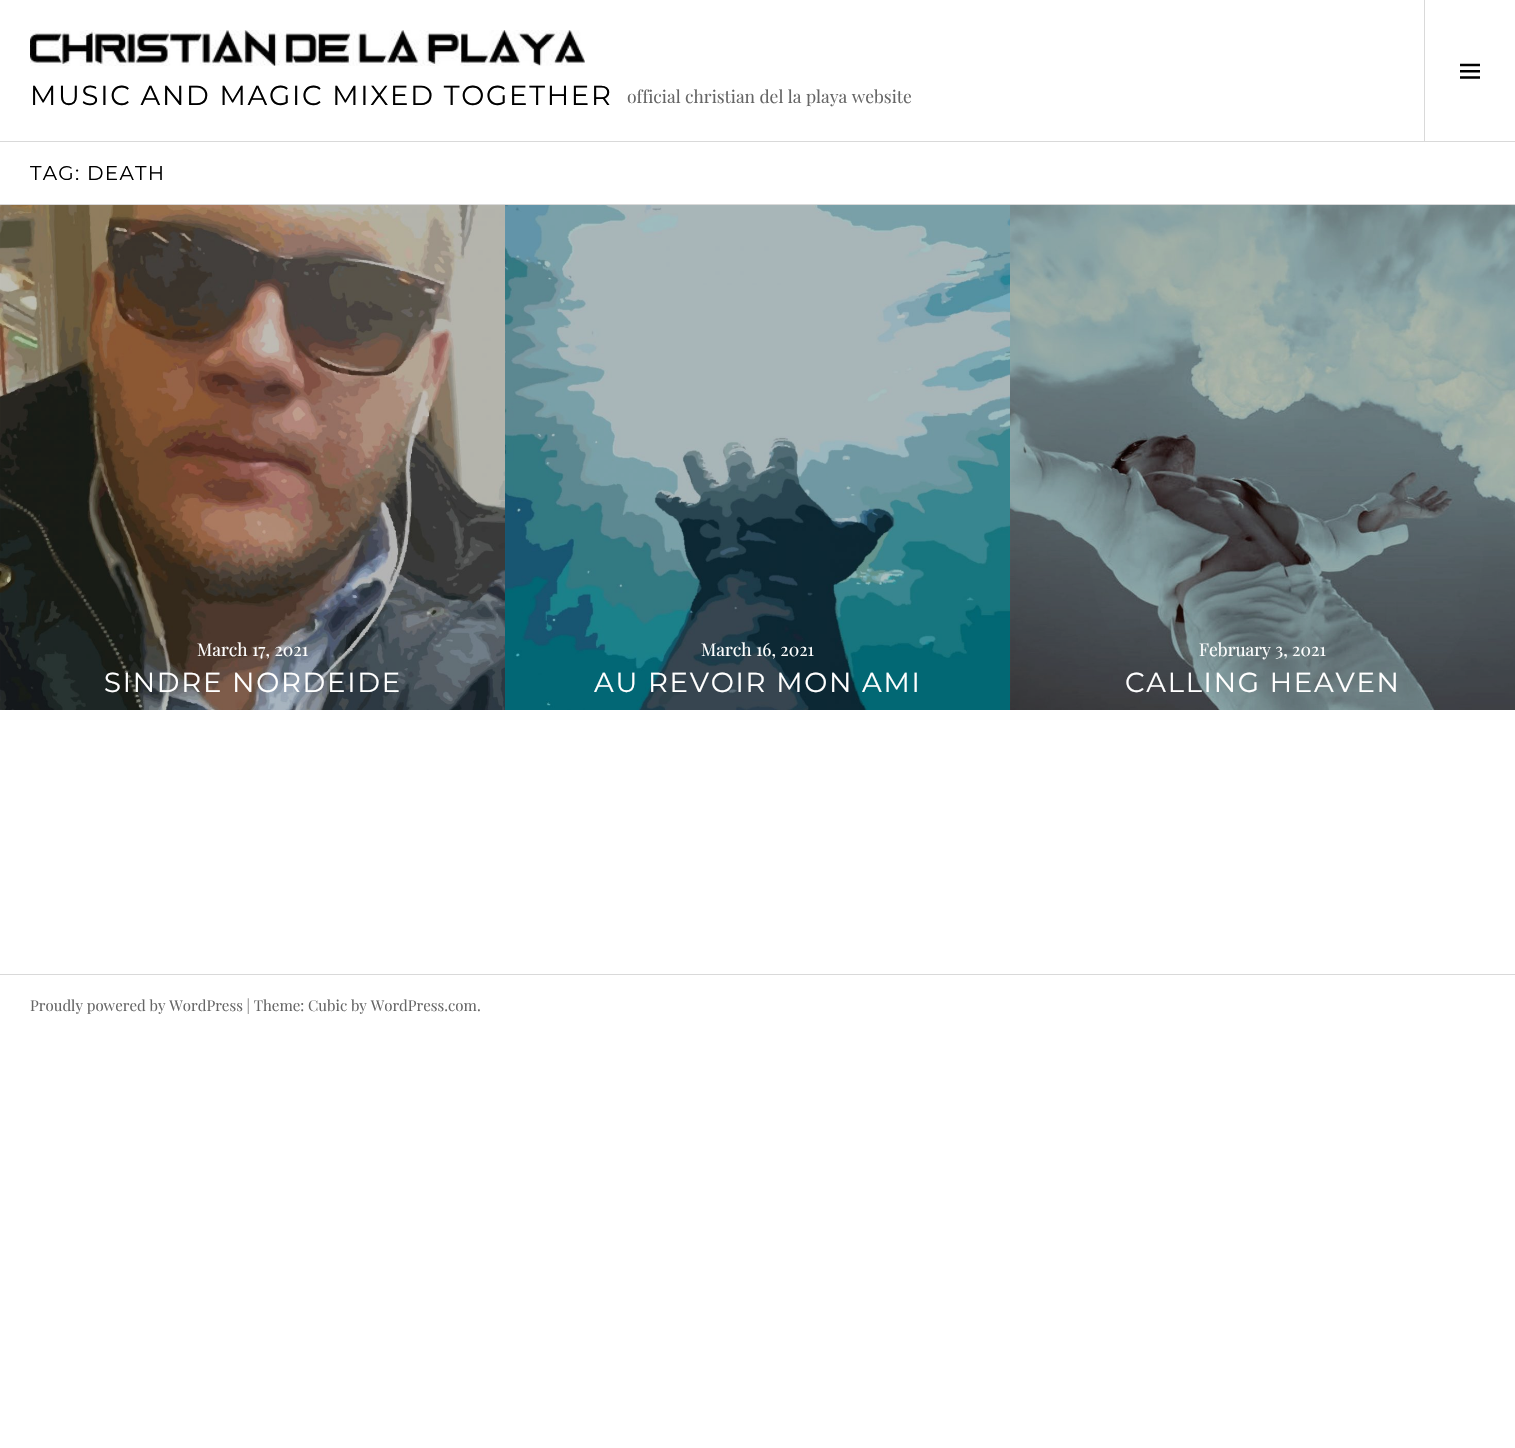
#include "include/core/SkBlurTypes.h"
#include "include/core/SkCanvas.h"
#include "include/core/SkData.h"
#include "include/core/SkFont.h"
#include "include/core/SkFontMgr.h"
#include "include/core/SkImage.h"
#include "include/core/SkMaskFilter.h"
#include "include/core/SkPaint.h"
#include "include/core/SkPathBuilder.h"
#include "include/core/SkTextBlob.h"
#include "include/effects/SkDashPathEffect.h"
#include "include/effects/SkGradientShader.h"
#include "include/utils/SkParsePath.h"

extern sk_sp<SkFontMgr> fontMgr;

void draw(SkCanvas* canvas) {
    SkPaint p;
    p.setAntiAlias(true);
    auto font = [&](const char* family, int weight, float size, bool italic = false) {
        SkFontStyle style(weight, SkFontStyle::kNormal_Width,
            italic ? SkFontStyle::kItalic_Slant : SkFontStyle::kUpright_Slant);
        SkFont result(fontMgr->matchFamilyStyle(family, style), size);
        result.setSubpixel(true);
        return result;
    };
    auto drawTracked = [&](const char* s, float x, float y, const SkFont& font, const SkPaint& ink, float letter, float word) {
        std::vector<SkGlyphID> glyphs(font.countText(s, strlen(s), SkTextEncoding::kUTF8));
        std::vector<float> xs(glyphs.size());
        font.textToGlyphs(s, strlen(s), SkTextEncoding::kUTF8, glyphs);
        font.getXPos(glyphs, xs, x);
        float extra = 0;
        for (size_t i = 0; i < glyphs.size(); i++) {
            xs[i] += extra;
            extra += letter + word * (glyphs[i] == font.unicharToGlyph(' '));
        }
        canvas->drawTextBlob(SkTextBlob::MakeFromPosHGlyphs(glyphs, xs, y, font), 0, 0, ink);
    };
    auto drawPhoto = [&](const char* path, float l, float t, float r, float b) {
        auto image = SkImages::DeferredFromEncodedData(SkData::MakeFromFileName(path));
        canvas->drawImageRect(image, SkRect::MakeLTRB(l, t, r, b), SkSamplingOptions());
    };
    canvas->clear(0xFFFFFFFF);
    p.setColor(0xFFD9D9D9);
    canvas->drawRect(SkRect::MakeLTRB(0, 141, 1515, 142), p);
    drawPhoto("media/1.png", 30, 30, 585, 66);
    auto font1 = font("Montserrat", 400, 27.5f);
    p.setColor(0xFF000000);
    drawTracked("MUSIC AND MAGIC MIXED TOGETHER", 30, 105, font1, p, 1.75f, 0);
    auto font2 = font("Playfair Display", 400, 17.5f);
    p.setColor(0xFF666666);
    canvas->drawString("official christian del la playa website", 627, 103, font2, p);
    p.setColor(0xFFD9D9D9);
    canvas->drawRect(SkRect::MakeLTRB(1424, 0, 1425, 141), p);
    drawPhoto("media/2.png", 1460, 63, 1480, 79);
    canvas->drawRect(SkRect::MakeLTRB(0, 204, 1515, 205), p);
    auto font3 = font("Montserrat", 400, 20);
    p.setColor(0xFF000000);
    drawTracked("TAG: DEATH", 30, 180, font3, p, 1.25f, 0);
    drawPhoto("media/3.png", 0, 205, 505, 710);
    p.setColor(0xFFFFFFFF);
    canvas->drawString("March 17, 2021", 197, 656, font2, p);
    drawTracked("SINDRE NORDEIDE", 104, 692, font1, p, 1.75f, 0);
    drawPhoto("media/4.png", 505, 205, 1010, 710);
    canvas->drawString("March 16, 2021", 701, 656, font2, p);
    drawTracked("AU REVOIR MON AMI", 594, 692, font1, p, 1.75f, 0);
    drawPhoto("media/5.png", 1010, 205, 1515, 710);
    canvas->drawString("February 3, 2021", 1199, 656, font2, p);
    drawTracked("CALLING HEAVEN", 1125, 692, font1, p, 1.75f, 0);
    p.setColor(0xFFD9D9D9);
    canvas->drawRect(SkRect::MakeLTRB(0, 974, 1515, 975), p);
    auto font4 = font("Playfair Display", 400, 15);
    p.setColor(0xFF666666);
    canvas->drawString("Proudly powered by WordPress | Theme: Cubic by WordPress.com.", 30, 1011, font4, p);
}
